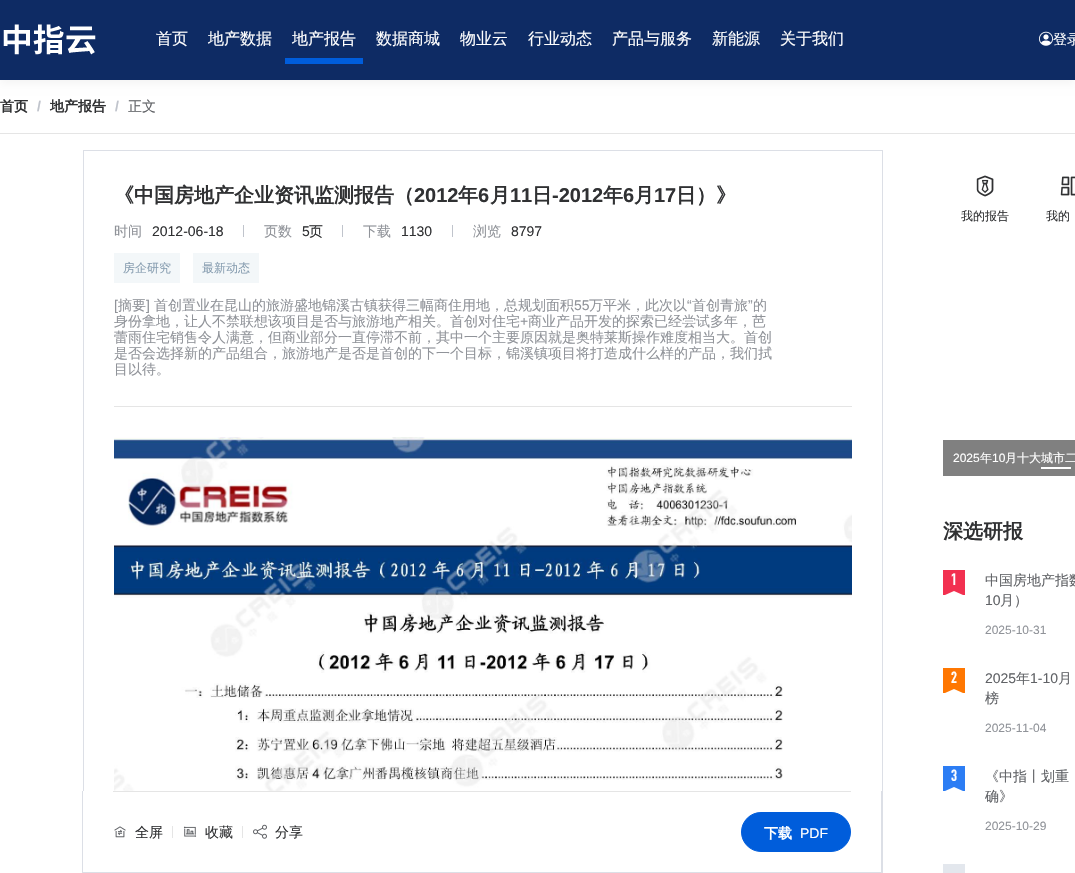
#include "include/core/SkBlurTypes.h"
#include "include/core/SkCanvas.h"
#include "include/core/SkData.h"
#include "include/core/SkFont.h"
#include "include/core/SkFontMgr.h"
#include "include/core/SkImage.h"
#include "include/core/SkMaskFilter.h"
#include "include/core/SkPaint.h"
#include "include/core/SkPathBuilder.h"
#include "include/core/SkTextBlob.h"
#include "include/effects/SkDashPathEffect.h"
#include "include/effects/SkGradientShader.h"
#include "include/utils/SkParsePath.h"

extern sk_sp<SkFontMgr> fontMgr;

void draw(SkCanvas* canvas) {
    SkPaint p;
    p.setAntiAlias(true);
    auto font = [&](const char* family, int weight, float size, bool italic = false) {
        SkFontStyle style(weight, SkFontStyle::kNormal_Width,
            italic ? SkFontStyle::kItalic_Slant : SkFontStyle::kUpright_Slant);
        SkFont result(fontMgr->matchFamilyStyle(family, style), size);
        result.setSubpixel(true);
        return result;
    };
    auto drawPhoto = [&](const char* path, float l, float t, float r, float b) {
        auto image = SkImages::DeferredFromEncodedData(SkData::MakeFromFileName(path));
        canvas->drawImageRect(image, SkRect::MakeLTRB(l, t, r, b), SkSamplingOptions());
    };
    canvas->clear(0xFFFFFFFF);
    p.setColor(0x0A000000);
    p.setMaskFilter(SkMaskFilter::MakeBlur(kNormal_SkBlurStyle, 4));
    canvas->drawRect(SkRect::MakeLTRB(0, 4, 1075, 84), p);
    p.setMaskFilter(nullptr);
    p.setColor(0xFF0E2B64);
    canvas->drawRect(SkRect::MakeLTRB(0, 0, 1075, 80), p);
    drawPhoto("media/1.png", 3, 24, 96, 55);
    auto font1 = font("WenQuanYi Zen Hei", 500, 16);
    p.setColor(0xFFFFFFFF);
    canvas->drawString("首页", 156, 44, font1, p);
    canvas->drawString("地产数据", 208, 44, font1, p);
    p.setColor(0xFF005DDB);
    canvas->drawRect(SkRect::MakeLTRB(285, 58, 363, 64), p);
    p.setColor(0xFFFFFFFF);
    {
        const struct { const char* s; float x, y; } items[] = {
            {"地产报告", 292, 44},
            {"数据商城", 376, 44},
            {"物业云", 460, 44},
            {"行业动态", 528, 44},
            {"产品与服务", 612, 44},
            {"新能源", 712, 44},
            {"关于我们", 780, 44},
        };
        for (auto [s, x, y] : items) {
            canvas->drawString(s, x, y, font1, p);
        }
    }
    drawPhoto("media/2.png", 1039, 31, 1053, 46);
    auto font2 = font("WenQuanYi Zen Hei", 500, 14);
    canvas->drawString("登录", 1053, 44, font2, p);
    p.setColor(0xFFE5E5E5);
    canvas->drawRect(SkRect::MakeLTRB(0, 133, 1075, 134), p);
    auto font3 = font("WenQuanYi Zen Hei", 700, 14);
    p.setColor(0xFF303133);
    canvas->drawString("首页", 0, 111, font3, p);
    auto font4 = font("Liberation Sans", 700, 14);
    p.setColor(0xFFC0C4CC);
    canvas->drawString("/", 37, 111, font4, p);
    p.setColor(0xFF303133);
    canvas->drawString("地产报告", 50, 111, font3, p);
    p.setColor(0xFFC0C4CC);
    canvas->drawString("/", 115, 111, font4, p);
    p.setColor(0xFF606266);
    canvas->drawString("正文", 128, 111, font2, p);
    p.setStyle(SkPaint::kStroke_Style);
    p.setStrokeWidth(1);
    p.setColor(0xFFDCDFE6);
    canvas->drawRect(SkRect::MakeLTRB(83.5f, 150.5f, 882.5f, 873.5f), p);
    auto font5 = font("WenQuanYi Zen Hei", 700, 20);
    p.setStyle(SkPaint::kFill_Style);
    p.setColor(0xFF303133);
    canvas->drawString("《中国房地产企业资讯监测报告（", 114, 202, font5, p);
    auto font6 = font("Liberation Sans", 700, 20);
    canvas->drawString("2012", 414, 202, font6, p);
    canvas->drawString("年", 458, 202, font5, p);
    canvas->drawString("6", 478, 202, font6, p);
    canvas->drawString("月", 490, 202, font5, p);
    canvas->drawString("11", 510, 202, font6, p);
    canvas->drawString("日", 532, 202, font5, p);
    canvas->drawString("-2012", 552, 202, font6, p);
    canvas->drawString("年", 603, 202, font5, p);
    canvas->drawString("6", 623, 202, font6, p);
    canvas->drawString("月", 634, 202, font5, p);
    canvas->drawString("17", 654, 202, font6, p);
    canvas->drawString("日）》", 676, 202, font5, p);
    p.setColor(0xFF909399);
    canvas->drawString("时间", 114, 236, font2, p);
    auto font7 = font("Liberation Sans", 400, 14);
    p.setColor(0xFF303133);
    canvas->drawString("2012-06-18", 152, 236, font7, p);
    p.setColor(0xFFC0C4CC);
    canvas->drawRect(SkRect::MakeLTRB(243, 225, 244, 237), p);
    p.setColor(0xFF909399);
    canvas->drawString("页数", 264, 236, font2, p);
    p.setColor(0xFF303133);
    canvas->drawString("5", 302, 236, font7, p);
    canvas->drawString("页", 309, 236, font2, p);
    p.setColor(0xFFC0C4CC);
    canvas->drawRect(SkRect::MakeLTRB(342, 225, 343, 237), p);
    p.setColor(0xFF909399);
    canvas->drawString("下载", 363, 236, font2, p);
    p.setColor(0xFF303133);
    canvas->drawString("1130", 401, 236, font7, p);
    p.setColor(0xFFC0C4CC);
    canvas->drawRect(SkRect::MakeLTRB(452, 225, 453, 237), p);
    p.setColor(0xFF909399);
    canvas->drawString("浏览", 473, 236, font2, p);
    p.setColor(0xFF303133);
    canvas->drawString("8797", 511, 236, font7, p);
    p.setColor(0xFFF3F7F9);
    canvas->drawRect(SkRect::MakeLTRB(114, 253, 180, 283), p);
    auto font8 = font("WenQuanYi Zen Hei", 500, 12);
    p.setColor(0xFF889EB1);
    canvas->drawString("房企研究", 123, 272, font8, p);
    p.setColor(0xFFF3F7F9);
    canvas->drawRect(SkRect::MakeLTRB(193, 253, 259, 283), p);
    p.setColor(0xFF889EB1);
    canvas->drawString("最新动态", 202, 272, font8, p);
    p.setColor(0xFF909399);
    canvas->drawString("[", 114, 310, font7, p);
    canvas->drawString("摘要", 118, 310, font2, p);
    canvas->drawString("]", 146, 310, font7, p);
    canvas->drawString("首创置业在昆山的旅游盛地锦溪古镇获得三幅商住用地，总规划面积", 154, 310, font2, p);
    canvas->drawString("55", 574, 310, font7, p);
    canvas->drawString("万平米，此次以", 589, 310, font2, p);
    canvas->drawString("“", 687, 310, font7, p);
    canvas->drawString("首创青旅", 692, 310, font2, p);
    canvas->drawString("”", 748, 310, font7, p);
    canvas->drawString("的", 753, 310, font2, p);
    canvas->drawString("身份拿地，让人不禁联想该项目是否与旅游地产相关。首创对住宅", 114, 326, font2, p);
    canvas->drawString("+", 520, 326, font7, p);
    {
        const struct { const char* s; float x, y; } items[] = {
            {"商业产品开发的探索已经尝试多年，芭", 528, 326},
            {"蕾雨住宅销售令人满意，但商业部分一直停滞不前，其中一个主要原因就是奥特莱斯操作难度相当大。首创", 114, 342},
            {"是否会选择新的产品组合，旅游地产是否是首创的下一个目标，锦溪镇项目将打造成什么样的产品，我们拭", 114, 358},
            {"目以待。", 114, 374},
        };
        for (auto [s, x, y] : items) {
            canvas->drawString(s, x, y, font2, p);
        }
    }
    p.setColor(0xFFE5E5E5);
    canvas->drawRect(SkRect::MakeLTRB(114, 406, 852, 407), p);
    drawPhoto("media/3.png", 114, 437, 852, 791);
    {
        const struct { float l, t, r, b; SkColor color; } items[] = {
            {83, 791, 84, 872, 0xFFFFFFFF},
            {881, 791, 882, 873, 0xFFDCDFE6},
            {82, 872, 882, 873, 0xFFDCDFE6},
            {82, 791, 83, 873, 0xFFDCDFE6},
            {113, 791, 851, 792, 0xFFE5E5E5},
        };
        for (auto [l, t, r, b, color] : items) {
            p.setColor(color);
            canvas->drawRect(SkRect::MakeLTRB(l, t, r, b), p);
        }
    }
    drawPhoto("media/4.png", 114, 826, 126, 838);
    p.setColor(0xFF303133);
    canvas->drawString("全屏", 135, 837, font2, p);
    p.setColor(0xFFE5E5E5);
    canvas->drawRect(SkRect::MakeLTRB(172, 826, 173, 838), p);
    drawPhoto("media/5.png", 183, 826, 197, 837);
    p.setColor(0xFF303133);
    canvas->drawString("收藏", 205, 837, font2, p);
    p.setColor(0xFFE5E5E5);
    canvas->drawRect(SkRect::MakeLTRB(242, 826, 243, 838), p);
    drawPhoto("media/6.png", 253, 824, 267, 839);
    p.setColor(0xFF303133);
    canvas->drawString("分享", 275, 837, font2, p);
    p.setColor(0xFF005DDB);
    canvas->drawRoundRect(SkRect::MakeLTRB(741.5f, 812.5f, 850.5f, 851.5f), 19.5f, 19.5f, p);
    p.setStyle(SkPaint::kStroke_Style);
    canvas->drawRoundRect(SkRect::MakeLTRB(741.5f, 812.5f, 850.5f, 851.5f), 19.5f, 19.5f, p);
    p.setStyle(SkPaint::kFill_Style);
    p.setColor(0xFFFFFFFF);
    canvas->drawString("下载", 764, 838, font3, p);
    canvas->drawString("PDF", 800, 838, font7, p);
    drawPhoto("media/7.png", 976, 175, 994, 197);
    p.setColor(0xFF303133);
    canvas->drawString("我的报告", 961, 220, font8, p);
    drawPhoto("media/8.png", 1060, 176, 1075, 196);
    canvas->drawString("我的", 1046, 220, font8, p);
    p.setColor(0xFF808080);
    canvas->drawRect(SkRect::MakeLTRB(943, 440, 1075, 476), p);
    auto font9 = font("Liberation Sans", 400, 12);
    p.setColor(0xFFFFFFFF);
    canvas->drawString("2025", 953, 462, font9, p);
    canvas->drawString("年", 980, 462, font8, p);
    canvas->drawString("10", 992, 462, font9, p);
    canvas->drawString("月十大城市二", 1005, 462, font8, p);
    canvas->drawRect(SkRect::MakeLTRB(1041, 467, 1071, 469), p);
    p.setColor(0xFF303133);
    canvas->drawString("深选研报", 943, 538, font5, p);
    p.setColor(0xFFF23050);
    canvas->drawRect(SkRect::MakeLTRB(943, 570, 965, 595), p);
    auto font10 = font("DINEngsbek", 400, 16);
    p.setColor(0xFFFFFFFF);
    canvas->drawString("1", 951, 585, font10, p);
    canvas->drawPath(SkPathBuilder().moveTo(963, 595).lineTo(945, 595).lineTo(954, 591).close().detach(), p);
    p.setColor(0xFF606266);
    canvas->drawString("中国房地产指数", 985, 585, font2, p);
    canvas->drawString("10", 985, 605, font7, p);
    canvas->drawString("月）", 1000, 605, font2, p);
    p.setColor(0xFF909399);
    canvas->drawString("2025-10-31", 985, 634, font9, p);
    p.setColor(0xFFFF7701);
    canvas->drawRect(SkRect::MakeLTRB(943, 668, 965, 693), p);
    p.setColor(0xFFFFFFFF);
    canvas->drawString("2", 951, 683, font10, p);
    canvas->drawPath(SkPathBuilder().moveTo(963, 693).lineTo(945, 693).lineTo(954, 689).close().detach(), p);
    p.setColor(0xFF606266);
    canvas->drawString("2025", 985, 683, font7, p);
    canvas->drawString("年", 1016, 683, font2, p);
    canvas->drawString("1-10", 1030, 683, font7, p);
    canvas->drawString("月", 1058, 683, font2, p);
    canvas->drawString("榜", 985, 703, font2, p);
    p.setColor(0xFF909399);
    canvas->drawString("2025-11-04", 985, 732, font9, p);
    p.setColor(0xFF2C7DF4);
    canvas->drawRect(SkRect::MakeLTRB(943, 766, 965, 791), p);
    p.setColor(0xFFFFFFFF);
    canvas->drawString("3", 951, 781, font10, p);
    canvas->drawPath(SkPathBuilder().moveTo(963, 791).lineTo(945, 791).lineTo(954, 787).close().detach(), p);
    p.setColor(0xFF606266);
    canvas->drawString("《中指丨划重", 985, 781, font2, p);
    canvas->drawString("确》", 985, 801, font2, p);
    p.setColor(0xFF909399);
    canvas->drawString("2025-10-29", 985, 830, font9, p);
    p.setColor(0xFFE3E7ED);
    canvas->drawRect(SkRect::MakeLTRB(943, 864, 965, 873), p);
}
